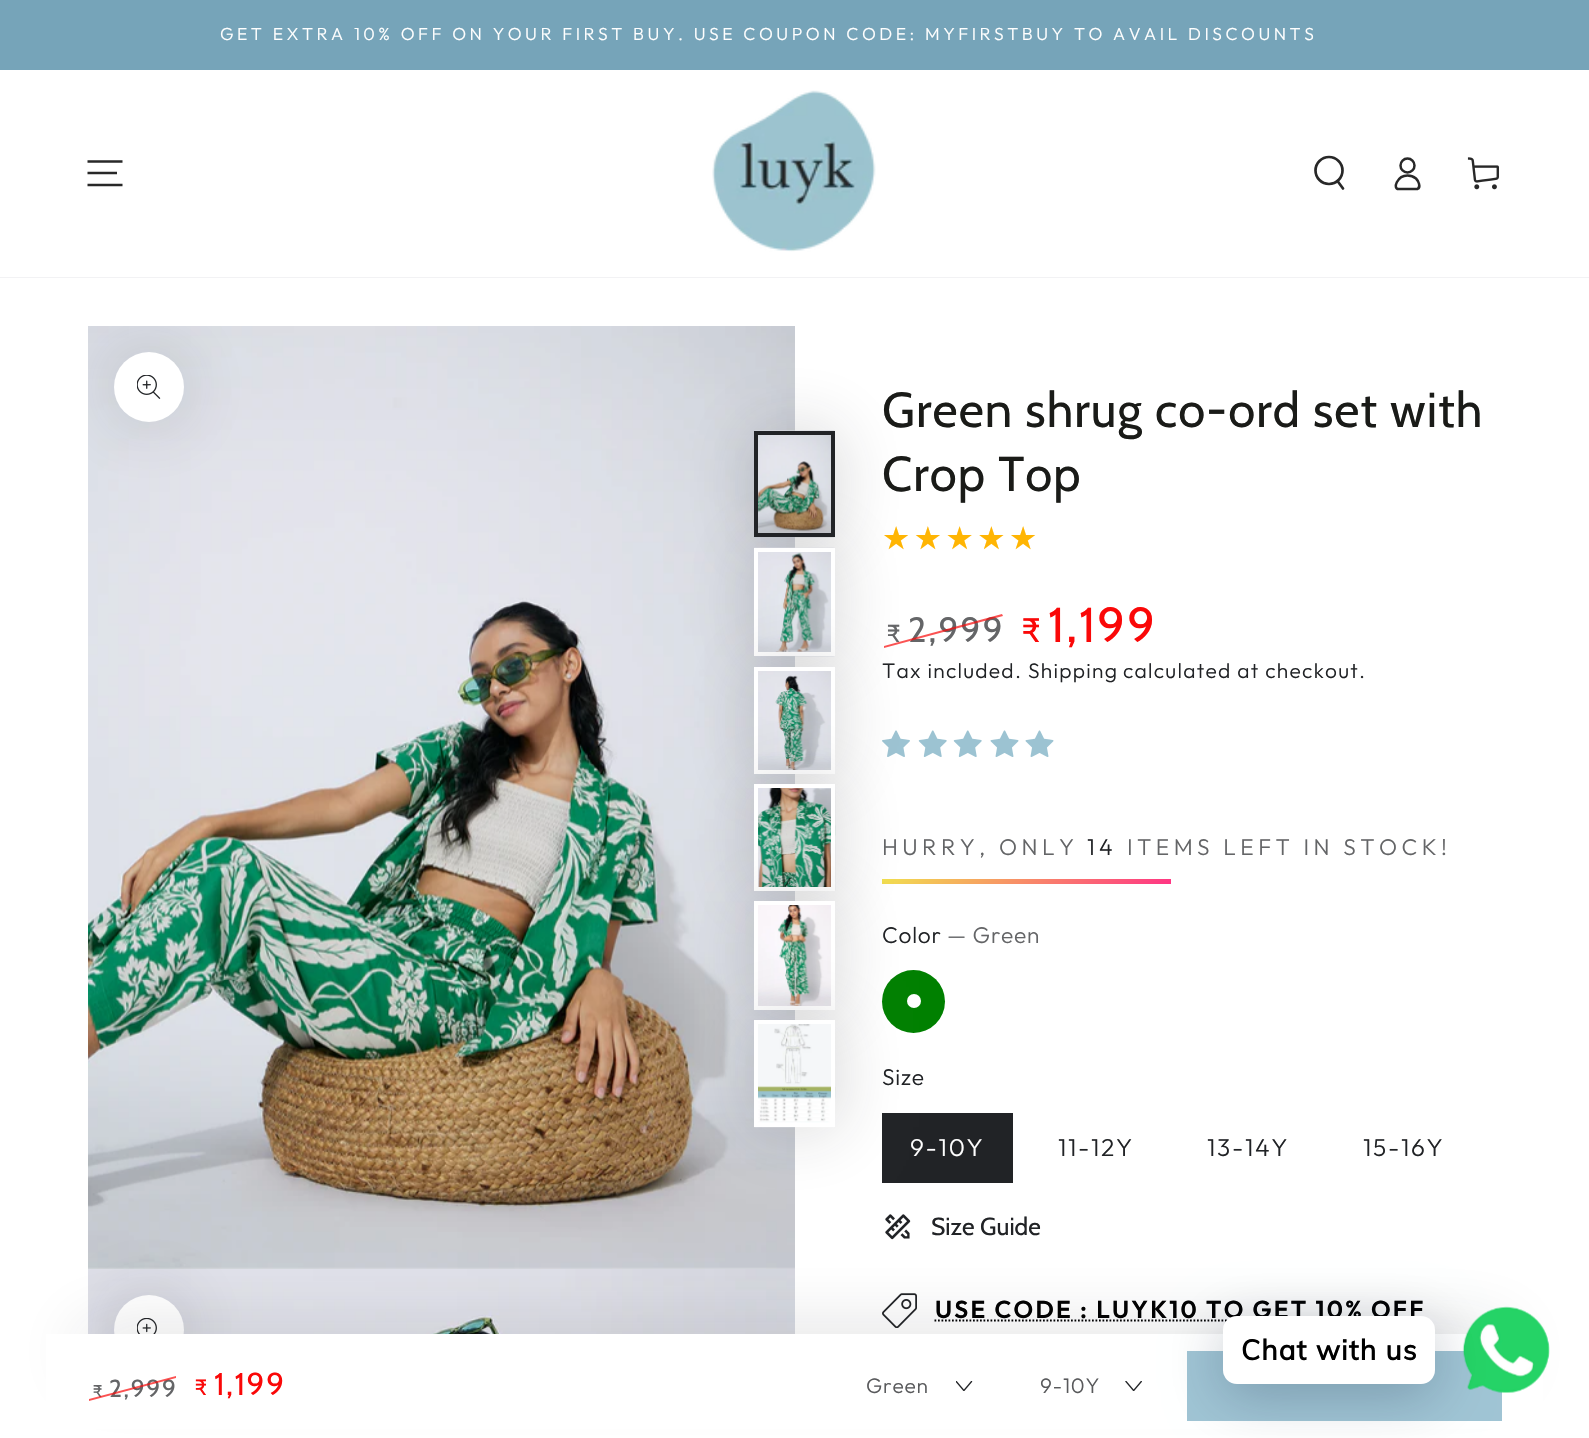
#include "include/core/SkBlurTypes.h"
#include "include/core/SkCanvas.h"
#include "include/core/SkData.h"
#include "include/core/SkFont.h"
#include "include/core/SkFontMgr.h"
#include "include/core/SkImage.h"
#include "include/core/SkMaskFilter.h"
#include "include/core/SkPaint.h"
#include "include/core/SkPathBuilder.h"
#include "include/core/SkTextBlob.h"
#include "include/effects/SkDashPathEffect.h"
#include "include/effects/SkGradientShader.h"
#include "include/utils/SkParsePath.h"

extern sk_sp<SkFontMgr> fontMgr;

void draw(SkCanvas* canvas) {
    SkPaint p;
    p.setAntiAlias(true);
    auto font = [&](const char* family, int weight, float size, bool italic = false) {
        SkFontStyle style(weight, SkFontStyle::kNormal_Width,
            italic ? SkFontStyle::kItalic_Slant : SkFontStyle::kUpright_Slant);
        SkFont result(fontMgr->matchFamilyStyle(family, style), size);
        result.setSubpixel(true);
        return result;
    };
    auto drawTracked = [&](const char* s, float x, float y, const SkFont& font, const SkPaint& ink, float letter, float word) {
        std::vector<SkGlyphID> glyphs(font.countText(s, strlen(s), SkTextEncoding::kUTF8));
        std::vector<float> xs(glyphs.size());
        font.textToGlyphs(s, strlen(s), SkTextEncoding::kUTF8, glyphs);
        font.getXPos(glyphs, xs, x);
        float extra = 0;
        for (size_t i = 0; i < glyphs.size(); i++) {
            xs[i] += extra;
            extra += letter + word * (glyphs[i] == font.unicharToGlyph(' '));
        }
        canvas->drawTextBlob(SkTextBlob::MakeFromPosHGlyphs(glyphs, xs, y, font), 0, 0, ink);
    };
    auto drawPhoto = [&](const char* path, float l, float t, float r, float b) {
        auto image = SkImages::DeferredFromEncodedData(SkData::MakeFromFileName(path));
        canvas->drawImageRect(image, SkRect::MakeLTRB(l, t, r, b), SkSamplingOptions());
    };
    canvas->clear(0xFFFFFFFF);
    p.setColor(0xFF76A4B9);
    canvas->drawRect(SkRect::MakeLTRB(0, 0, 1589, 70), p);
    auto font1 = font("Outfit", 300, 17.5f);
    p.setColor(0xFFFFFFFF);
    drawTracked("GET EXTRA 10% OFF ON YOUR FIRST BUY. USE COUPON CODE: MYFIRSTBUY TO AVAIL DISCOUNTS", 220, 40, font1, p, 3.5f, 0);
    drawPhoto("media/4.png", 88, 326, 795, 1269);
    canvas->save();
    canvas->clipRect(SkRect::MakeLTRB(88, 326, 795, 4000));
    p.setColor(0x33212326);
    p.setMaskFilter(SkMaskFilter::MakeBlur(kNormal_SkBlurStyle, 35));
    canvas->drawRoundRect(SkRect::MakeLTRB(114, 352, 184, 422), 35, 35, p);
    p.setMaskFilter(nullptr);
    canvas->restore();
    p.setColor(0xFFF2F2F4);
    canvas->drawRect(SkRect::MakeLTRB(0, 277, 1589, 278), p);
    p.setStyle(SkPaint::kStroke_Style);
    p.setStrokeWidth(2.6f);
    p.setColor(0xFF282828);
    canvas->drawPath(SkPathBuilder().moveTo(87.5f, 185).lineTo(122.5f, 185).moveTo(87.5f, 173).lineTo(117, 173).moveTo(87.5f, 161.5f).lineTo(122.5f, 161.5f).detach(), p);
    drawPhoto("media/1.png", 712, 90, 876, 252);
    p.setStrokeWidth(2.7f);
    canvas->drawCircle(1329, 170.5f, 13.5f, p);
    p.setStrokeCap(SkPaint::kRound_Cap);
    canvas->drawPath(SkPathBuilder().moveTo(1337.5f, 181).lineTo(1343, 188.5f).detach(), p);
    p.setStrokeWidth(2.5f);
    p.setStrokeCap(SkPaint::kButt_Cap);
    canvas->drawPath(SkPathBuilder().moveTo(1407.5f, 175.5f).cubicTo(1397, 175.5f, 1392.5f, 189, 1398.5f, 189).lineTo(1417.5f, 189).cubicTo(1421.5f, 187, 1418, 180.5f, 1416, 178.5f).cubicTo(1413.5f, 176.5f, 1410.5f, 175.5f, 1407.5f, 175.5f).close().detach(), p);
    canvas->drawCircle(1407.5f, 165.5f, 7, p);
    drawPhoto("media/2.png", 1467, 157, 1499, 190);
    p.setStyle(SkPaint::kFill_Style);
    p.setColor(0xFFFFFFFF);
    canvas->drawCircle(149, 387, 35, p);
    drawPhoto("media/3.png", 137, 375, 161, 399);
    drawPhoto("media/6.png", 88, 1269, 795, 1334);
    canvas->save();
    canvas->clipRect(SkRect::MakeLTRB(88, 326, 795, 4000));
    p.setColor(0x33212326);
    p.setMaskFilter(SkMaskFilter::MakeBlur(kNormal_SkBlurStyle, 35));
    canvas->drawRoundRect(SkRect::MakeLTRB(114, 1295, 184, 1365), 35, 35, p);
    p.setMaskFilter(nullptr);
    canvas->restore();
    p.setColor(0xFFFFFFFF);
    canvas->drawCircle(149, 1330, 35, p);
    drawPhoto("media/5.png", 137, 1318, 157, 1334);
    auto font2 = font("Cabin", 400, 24.5f);
    p.setColor(0xFF646567);
    drawTracked("₹", 887, 642, font2, p, 2.25f, 0);
    auto font3 = font("Cabin", 400, 35);
    drawTracked("2,999", 908, 642, font3, p, 2.25f, 0);
    p.setColor(0xB3FA0808);
    canvas->drawPath(SkPathBuilder().moveTo(884, 646).lineTo(1002, 614).lineTo(1003, 616).lineTo(884, 648).close().detach(), p);
    p.setColor(0x33212326);
    p.setMaskFilter(SkMaskFilter::MakeBlur(kNormal_SkBlurStyle, 35));
    canvas->drawRect(SkRect::MakeLTRB(754, 431, 835, 537), p);
    p.setMaskFilter(nullptr);
    drawPhoto("media/7.png", 754, 430, 835, 538);
    p.setStyle(SkPaint::kStroke_Style);
    p.setStrokeWidth(4);
    p.setColor(0xFF212326);
    canvas->drawRect(SkRect::MakeLTRB(756, 433, 833, 535), p);
    drawPhoto("media/13.png", 882, 730, 910, 757);
    drawPhoto("media/14.png", 918, 730, 947, 757);
    p.setStyle(SkPaint::kFill_Style);
    p.setColor(0x33212326);
    p.setMaskFilter(SkMaskFilter::MakeBlur(kNormal_SkBlurStyle, 35));
    canvas->drawRect(SkRect::MakeLTRB(754, 548, 835, 656), p);
    p.setMaskFilter(nullptr);
    drawPhoto("media/8.png", 754, 547, 835, 657);
    p.setStyle(SkPaint::kStroke_Style);
    p.setColor(0xFFFFFFFF);
    canvas->drawRect(SkRect::MakeLTRB(756, 550, 833, 654), p);
    p.setStyle(SkPaint::kFill_Style);
    {
        const SkColor colors[] = {0xFFFF3484, 0xFFF1E04D};
        const float stops[] = {0, 1};
        const SkPoint ends[] = {{1075, 951}, {978, 812}};
        p.setShader(SkGradientShader::MakeLinear(ends, colors, stops, 2, SkTileMode::kClamp));
        p.setAlpha(255);
    }
    canvas->drawRect(SkRect::MakeLTRB(882, 879, 1171, 884), p);
    p.setShader(nullptr);
    p.setColor(0x33212326);
    p.setMaskFilter(SkMaskFilter::MakeBlur(kNormal_SkBlurStyle, 35));
    canvas->drawRect(SkRect::MakeLTRB(754, 667, 835, 774), p);
    p.setMaskFilter(nullptr);
    drawPhoto("media/9.png", 758, 671, 831, 770);
    p.setStyle(SkPaint::kStroke_Style);
    p.setColor(0xFFFFFFFF);
    canvas->drawRect(SkRect::MakeLTRB(756, 669, 833, 772), p);
    p.setStyle(SkPaint::kFill_Style);
    p.setColor(0xFF008000);
    canvas->drawCircle(913.5f, 1001.5f, 31.5f, p);
    p.setColor(0xFFFFFFFF);
    canvas->drawCircle(914, 1001, 7, p);
    p.setColor(0x33212326);
    p.setMaskFilter(SkMaskFilter::MakeBlur(kNormal_SkBlurStyle, 35));
    canvas->drawRect(SkRect::MakeLTRB(754, 784, 835, 891), p);
    p.setMaskFilter(nullptr);
    drawPhoto("media/10.png", 758, 784, 836, 891);
    p.setStyle(SkPaint::kStroke_Style);
    p.setColor(0xFFFFFFFF);
    canvas->drawRect(SkRect::MakeLTRB(756, 786, 833, 889), p);
    p.setStyle(SkPaint::kFill_Style);
    p.setColor(0xFF212326);
    canvas->drawRect(SkRect::MakeLTRB(882, 1113, 1013, 1183), p);
    p.setColor(0x33212326);
    p.setMaskFilter(SkMaskFilter::MakeBlur(kNormal_SkBlurStyle, 35));
    canvas->drawRect(SkRect::MakeLTRB(754, 901, 835, 1010), p);
    p.setMaskFilter(nullptr);
    drawPhoto("media/11.png", 758, 905, 831, 1006);
    p.setStyle(SkPaint::kStroke_Style);
    p.setColor(0xFFFFFFFF);
    canvas->drawRect(SkRect::MakeLTRB(756, 903, 833, 1008), p);
    drawPhoto("media/16.png", 885, 1214, 911, 1240);
    p.setStyle(SkPaint::kFill_Style);
    p.setColor(0x33212326);
    p.setMaskFilter(SkMaskFilter::MakeBlur(kNormal_SkBlurStyle, 35));
    canvas->drawRect(SkRect::MakeLTRB(754, 1020, 835, 1127), p);
    p.setMaskFilter(nullptr);
    drawPhoto("media/12.png", 754, 1020, 836, 1128);
    p.setStyle(SkPaint::kStroke_Style);
    p.setColor(0xFFFFFFFF);
    canvas->drawRect(SkRect::MakeLTRB(756, 1022, 833, 1125), p);
    auto font4 = font("Cabin", 400, 49);
    p.setStyle(SkPaint::kFill_Style);
    p.setColor(0xFF1A1B18);
    drawTracked("Green shrug co-ord set with", 882, 427, font4, p, 1.05f, 0);
    drawTracked("Crop Top", 882, 491, font4, p, 1.05f, 0);
    auto font5 = font("DejaVu Sans", 400, 31.5f);
    {
        const SkColor colors[] = {0xFFFFB503, 0xFFDEDEDE};
        const float stops[] = {1, 1};
        const SkPoint ends[] = {{882, 539}, {1041, 539}};
        p.setShader(SkGradientShader::MakeLinear(ends, colors, stops, 2, SkTileMode::kClamp));
        p.setAlpha(255);
    }
    drawTracked("★★★★★", 882, 549, font5, p, 3.5f, 0);
    auto font6 = font("Cabin", 400, 34);
    p.setShader(nullptr);
    p.setColor(0xFFFA0808);
    drawTracked("₹", 1022, 642, font6, p, 2.25f, 0);
    drawTracked("1,199", 1048, 642, font4, p, 2.25f, 0);
    auto font7 = font("Outfit", 300, 21);
    p.setColor(0xFF212326);
    drawTracked("Tax included. Shipping", 882, 678, font7, p, 1.25f, 0);
    drawTracked("calculated at checkout.", 1123, 678, font7, p, 1.25f, 0);
    drawPhoto("media/14.png", 953, 730, 982, 757);
    drawPhoto("media/15.png", 990, 730, 1019, 757);
    drawPhoto("media/15.png", 1025, 730, 1054, 757);
    auto font8 = font("Outfit", 300, 22.75f);
    p.setColor(0xFF646567);
    drawTracked("HURRY, ONLY", 882, 855, font8, p, 4.4f, 0);
    p.setColor(0xFF212326);
    drawTracked("14", 1087, 855, font8, p, 4.4f, 0);
    p.setColor(0xFF646567);
    drawTracked("ITEMS LEFT IN STOCK!", 1127, 855, font8, p, 4.4f, 0);
    p.setColor(0xFF212326);
    drawTracked("Color", 882, 943, font8, p, 0.75f, 0);
    p.setColor(0xFF646567);
    drawTracked("— Green", 947, 943, font8, p, 0.75f, 0);
    p.setColor(0xFF212326);
    drawTracked("Size", 882, 1085, font8, p, 0.75f, 0);
    auto font9 = font("Outfit", 300, 24.5f);
    p.setColor(0xFFFFFFFF);
    drawTracked("9-10Y", 910, 1156, font9, p, 1.75f, 0);
    p.setColor(0xFF212326);
    {
        const struct { const char* s; float x, y; } items[] = {
            {"11-12Y", 1058, 1156},
            {"13-14Y", 1207, 1156},
            {"15-16Y", 1363, 1156},
        };
        for (auto [s, x, y] : items) {
            drawTracked(s, x, y, font9, p, 1.75f, 0);
        }
    }
    canvas->drawString("Size Guide", 931, 1235, font2, p);
    drawPhoto("media/17.png", 882, 1293, 917, 1328);
    auto font10 = font("Outfit", 600, 24.5f);
    p.setColor(0xFF000000);
    drawTracked("USE CODE : LUYK10 TO GET 10% OFF", 935, 1318, font10, p, 2.25f, 0);
    p.setStyle(SkPaint::kStroke_Style);
    p.setStrokeWidth(1.8f);
    p.setPathEffect(SkDashPathEffect::Make({{1.75f, 1.75f}}, 0));
    canvas->drawPath(SkPathBuilder().moveTo(934.5f, 1320.5f).lineTo(1426, 1320.5f).detach(), p);
    p.setPathEffect(nullptr);
    p.setStyle(SkPaint::kFill_Style);
    p.setColor(0x33212326);
    p.setMaskFilter(SkMaskFilter::MakeBlur(kNormal_SkBlurStyle, 35));
    canvas->drawRoundRect(SkRect::MakeLTRB(79, 1334, 1510, 1369), 17.5f, 17.5f, p);
    p.setMaskFilter(nullptr);
    p.setColor(0xFFFFFFFF);
    canvas->drawRect(SkRect::MakeLTRB(46, 1334, 1543, 1429), p);
    auto font11 = font("Cabin", 400, 17);
    p.setColor(0xFF646567);
    drawTracked("₹", 93, 1397, font11, p, 1.75f, 0);
    drawTracked("2,999", 109, 1397, font2, p, 1.75f, 0);
    p.setColor(0xB3FA0808);
    canvas->drawPath(SkPathBuilder().moveTo(89, 1399).lineTo(176, 1376).lineTo(176, 1378).lineTo(89, 1401).close().detach(), p);
    auto font12 = font("Cabin", 400, 22);
    p.setColor(0xFFFA0808);
    drawTracked("₹", 195, 1395, font12, p, 1.75f, 0);
    auto font13 = font("Cabin", 400, 31.5f);
    drawTracked("1,199", 214, 1395, font13, p, 1.75f, 0);
    p.setColor(0xFF595A5C);
    drawTracked("Green", 866, 1393, font7, p, 0.75f, 0);
    drawPhoto("media/18.png", 956, 1381, 973, 1391);
    drawTracked("9-10Y", 1040, 1393, font7, p, 0.75f, 0);
    drawPhoto("media/19.png", 1125, 1381, 1142, 1391);
    p.setColor(0xFFA0C4D4);
    canvas->drawRect(SkRect::MakeLTRB(1187, 1351, 1502, 1421), p);
    drawPhoto("media/20.png", 1462, 1306, 1550, 1393);
    p.setColor(0x3D00122E);
    p.setMaskFilter(SkMaskFilter::MakeBlur(kNormal_SkBlurStyle, 28));
    canvas->drawRoundRect(SkRect::MakeLTRB(1223, 1327, 1435, 1395), 14, 14, p);
    p.setMaskFilter(nullptr);
    p.setColor(0xFFFFFFFF);
    canvas->drawRoundRect(SkRect::MakeLTRB(1223, 1316, 1435, 1384), 14, 14, p);
    auto font14 = font("Muli", 700, 28);
    p.setColor(0xFF000000);
    drawTracked("Chat with us", 1241, 1360, font14, p, 1.05f, 0);
}
